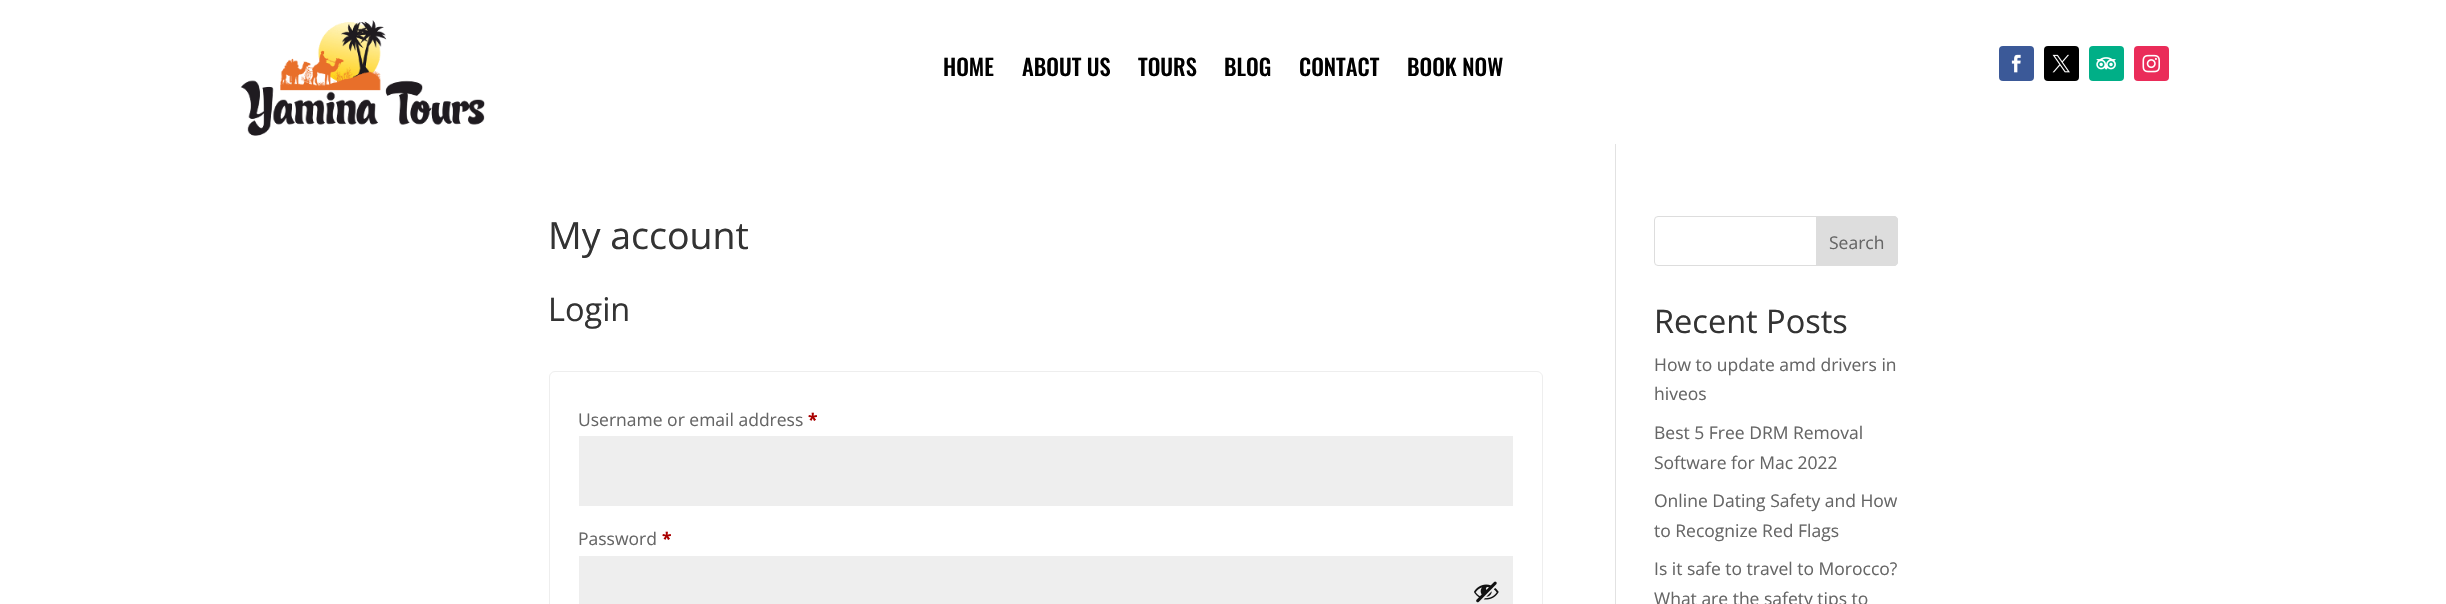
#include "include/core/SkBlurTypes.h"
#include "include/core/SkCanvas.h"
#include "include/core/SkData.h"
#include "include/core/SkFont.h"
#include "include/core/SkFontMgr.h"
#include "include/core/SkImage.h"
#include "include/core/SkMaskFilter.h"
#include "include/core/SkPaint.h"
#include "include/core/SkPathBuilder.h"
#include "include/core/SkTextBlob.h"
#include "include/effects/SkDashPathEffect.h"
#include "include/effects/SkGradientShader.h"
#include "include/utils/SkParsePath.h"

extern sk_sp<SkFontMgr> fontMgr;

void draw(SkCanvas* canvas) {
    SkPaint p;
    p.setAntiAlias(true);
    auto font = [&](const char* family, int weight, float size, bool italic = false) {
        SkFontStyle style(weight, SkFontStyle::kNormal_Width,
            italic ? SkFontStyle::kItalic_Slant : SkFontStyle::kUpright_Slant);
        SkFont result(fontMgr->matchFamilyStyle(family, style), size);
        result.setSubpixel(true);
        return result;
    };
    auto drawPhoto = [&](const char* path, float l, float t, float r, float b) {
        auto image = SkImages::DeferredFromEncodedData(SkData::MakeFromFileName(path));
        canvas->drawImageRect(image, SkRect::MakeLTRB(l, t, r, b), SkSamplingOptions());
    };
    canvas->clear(0xFFFFFFFF);
    drawPhoto("media/1.png", 240, 20, 485, 136);
    auto font1 = font("Oswald", 500, 22.5f);
    p.setColor(0xFF000000);
    {
        const struct { const char* s; float x, y; } items[] = {
            {"HOME", 943, 76},
            {"ABOUT US", 1022, 76},
            {"TOURS", 1138, 76},
            {"BLOG", 1224, 76},
            {"CONTACT", 1299, 76},
            {"BOOK NOW", 1407, 76},
        };
        for (auto [s, x, y] : items) {
            canvas->drawString(s, x, y, font1, p);
        }
    }
    p.setColor(0xFF3B5998);
    canvas->drawRoundRect(SkRect::MakeLTRB(1999, 46, 2034, 81), 4, 4, p);
    drawPhoto("media/2.png", 2011, 54, 2021, 73);
    p.setColor(0xFF000000);
    canvas->drawRoundRect(SkRect::MakeLTRB(2044, 46, 2079, 81), 4, 4, p);
    drawPhoto("media/3.png", 2052, 54, 2070, 73);
    p.setColor(0xFF00AF87);
    canvas->drawRoundRect(SkRect::MakeLTRB(2089, 46, 2124, 81), 4, 4, p);
    drawPhoto("media/4.png", 2096, 57, 2116, 70);
    p.setColor(0xFFEA2C59);
    canvas->drawRoundRect(SkRect::MakeLTRB(2134, 46, 2169, 81), 4, 4, p);
    drawPhoto("media/5.png", 2142, 54, 2160, 73);
    p.setColor(0xFFE2E2E2);
    canvas->drawRect(SkRect::MakeLTRB(1615, 144, 1616, 604), p);
    auto font2 = font("Open Sans", 400, 37.5f);
    p.setColor(0xFF333333);
    canvas->drawString("My account", 548, 249, font2, p);
    auto font3 = font("Open Sans", 400, 32.5f);
    canvas->drawString("Login", 548, 321, font3, p);
    p.setStyle(SkPaint::kStroke_Style);
    p.setStrokeWidth(1);
    p.setColor(0xFFEEEEEE);
    canvas->drawRoundRect(SkRect::MakeLTRB(549.5f, 371.5f, 1542.5f, 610.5f), 5.5f, 5.5f, p);
    auto font4 = font("Open Sans", 400, 17.5f);
    p.setStyle(SkPaint::kFill_Style);
    p.setColor(0xFF666666);
    canvas->drawString("Username or email address", 578, 426, font4, p);
    auto font5 = font("Open Sans", 700, 17.5f);
    p.setColor(0xFFAA0000);
    canvas->drawString("*", 808, 426, font5, p);
    p.setColor(0xFFEEEEEE);
    canvas->drawRect(SkRect::MakeLTRB(579, 436, 1513, 506), p);
    p.setColor(0xFF666666);
    canvas->drawString("Password", 578, 545, font4, p);
    p.setColor(0xFFAA0000);
    canvas->drawString("*", 662, 545, font5, p);
    p.setColor(0xFFEEEEEE);
    canvas->drawRect(SkRect::MakeLTRB(579, 556, 1513, 604), p);
    drawPhoto("media/6.png", 1474, 581, 1499, 603);
    p.setStyle(SkPaint::kStroke_Style);
    p.setColor(0xFFDDDDDD);
    canvas->drawRoundRect(SkRect::MakeLTRB(1654.5f, 216.5f, 1897.5f, 265.5f), 3.5f, 3.5f, p);
    p.setStyle(SkPaint::kFill_Style);
    canvas->drawPath(SkPathBuilder().moveTo(1816.5f, 216.5f).lineTo(1894, 216.5f).cubicTo(1896, 216.5f, 1897.5f, 218, 1897.5f, 220).lineTo(1897.5f, 262).cubicTo(1897.5f, 264, 1896, 265.5f, 1894, 265.5f).lineTo(1816.5f, 265.5f).close().detach(), p);
    p.setStyle(SkPaint::kStroke_Style);
    canvas->drawPath(SkPathBuilder().moveTo(1816.5f, 216.5f).lineTo(1894, 216.5f).cubicTo(1896, 216.5f, 1897.5f, 218, 1897.5f, 220).lineTo(1897.5f, 262).cubicTo(1897.5f, 264, 1896, 265.5f, 1894, 265.5f).lineTo(1816.5f, 265.5f).close().detach(), p);
    p.setStyle(SkPaint::kFill_Style);
    p.setColor(0xFF666666);
    canvas->drawString("Search", 1829, 249, font4, p);
    p.setColor(0xFF333333);
    canvas->drawString("Recent Posts", 1654, 333, font3, p);
    p.setColor(0xFF666666);
    {
        const struct { const char* s; float x, y; } items[] = {
            {"How to update amd drivers in", 1654, 371},
            {"hiveos", 1654, 400},
            {"Best 5 Free DRM Removal", 1654, 439},
            {"Software for Mac 2022", 1654, 469},
            {"Online Dating Safety and How", 1654, 507},
            {"to Recognize Red Flags", 1654, 537},
            {"Is it safe to travel to Morocco?", 1654, 575},
            {"What are the safety tips to", 1654, 605},
        };
        for (auto [s, x, y] : items) {
            canvas->drawString(s, x, y, font4, p);
        }
    }
}
